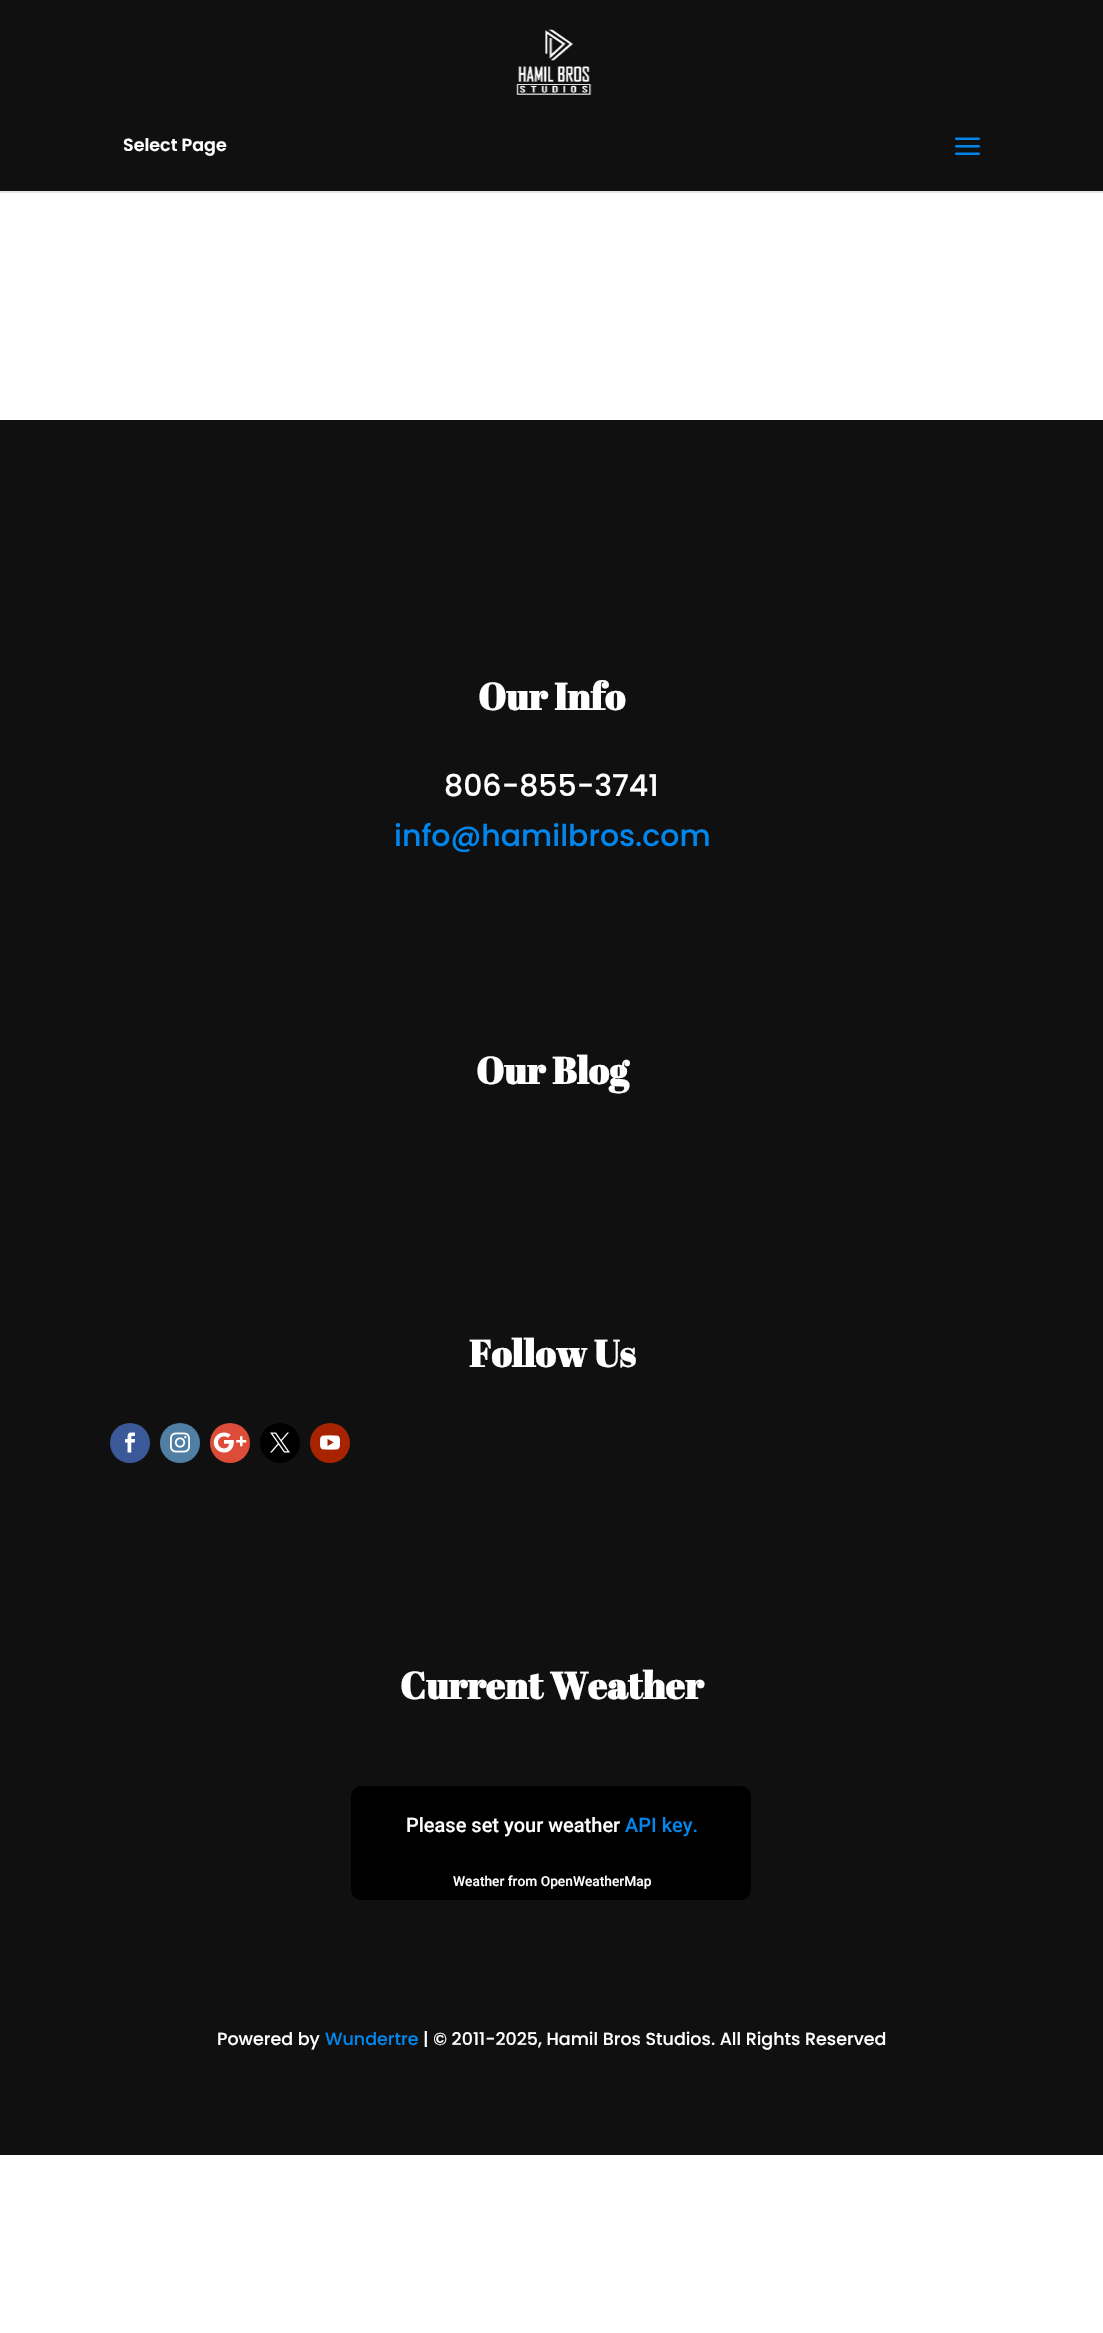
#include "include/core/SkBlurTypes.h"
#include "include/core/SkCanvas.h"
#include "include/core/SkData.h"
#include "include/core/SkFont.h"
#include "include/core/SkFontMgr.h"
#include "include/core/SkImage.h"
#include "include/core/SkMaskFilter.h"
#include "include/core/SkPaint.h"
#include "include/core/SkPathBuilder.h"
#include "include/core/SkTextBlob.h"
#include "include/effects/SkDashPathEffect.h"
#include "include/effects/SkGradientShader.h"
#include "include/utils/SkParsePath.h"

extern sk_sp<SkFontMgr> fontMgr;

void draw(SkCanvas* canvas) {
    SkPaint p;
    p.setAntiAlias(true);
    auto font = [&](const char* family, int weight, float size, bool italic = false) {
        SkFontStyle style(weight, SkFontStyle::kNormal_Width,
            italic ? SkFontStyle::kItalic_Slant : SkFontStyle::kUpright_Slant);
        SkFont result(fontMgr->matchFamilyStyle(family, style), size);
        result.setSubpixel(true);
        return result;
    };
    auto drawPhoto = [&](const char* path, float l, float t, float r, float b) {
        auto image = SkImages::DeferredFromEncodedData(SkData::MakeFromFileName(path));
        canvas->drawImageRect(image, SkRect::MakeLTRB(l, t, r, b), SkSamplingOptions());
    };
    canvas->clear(0xFFFFFFFF);
    p.setColor(0xFFE6E6E6);
    canvas->drawPath(SkPathBuilder().moveTo(0, 191).lineTo(0, 193).lineTo(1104, 193).lineTo(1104, 1).lineTo(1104, 191).close().detach(), p);
    p.setColor(0xFF101010);
    canvas->drawRect(SkRect::MakeLTRB(0, 0, 1103, 191), p);
    drawPhoto("media/1.png", 516, 29, 592, 95);
    auto font1 = font("Poppins", 600, 17.5f);
    p.setColor(0xFFFFFFFF);
    canvas->drawString("Select Page", 123, 151, font1, p);
    drawPhoto("media/2.png", 955, 137, 980, 155);
    p.setColor(0xFF101010);
    canvas->drawRect(SkRect::MakeLTRB(0, 420, 1103, 2155), p);
    auto font2 = font("Abril Fatface", 700, 37.5f);
    p.setColor(0xFFFFFFFF);
    canvas->drawString("Our Info", 478, 710, font2, p);
    auto font3 = font("Poppins", 500, 30);
    canvas->drawString("806-855-3741", 444, 796, font3, p);
    p.setColor(0xFF0086ED);
    canvas->drawString("info@hamilbros.com", 394, 846, font3, p);
    p.setColor(0xFFFFFFFF);
    canvas->drawString("Our Blog", 476, 1084, font2, p);
    canvas->drawString("Follow Us", 469, 1367, font2, p);
    p.setColor(0xFF3B5998);
    canvas->drawCircle(130, 1443, 20, p);
    drawPhoto("media/3.png", 125, 1432, 135, 1453);
    p.setColor(0xFF517FA4);
    canvas->drawCircle(180, 1443, 20, p);
    drawPhoto("media/4.png", 170, 1432, 190, 1453);
    p.setColor(0xFFDD4B39);
    canvas->drawCircle(230, 1443, 20, p);
    drawPhoto("media/5.png", 213, 1432, 247, 1453);
    p.setColor(0xFF000000);
    canvas->drawCircle(280, 1443, 20, p);
    drawPhoto("media/6.png", 270, 1432, 290, 1453);
    p.setColor(0xFFA82400);
    canvas->drawCircle(330, 1443, 20, p);
    drawPhoto("media/7.png", 320, 1435, 340, 1450);
    p.setColor(0xFFFFFFFF);
    canvas->drawString("Current Weather", 400, 1699, font2, p);
    p.setColor(0xFF000000);
    canvas->drawRoundRect(SkRect::MakeLTRB(351, 1786, 751, 1900), 10, 10, p);
    auto font4 = font("Roboto", 500, 20);
    p.setColor(0xFFFFFFFF);
    canvas->drawString("Please set your weather", 406, 1832, font4, p);
    p.setColor(0xFF0086ED);
    canvas->drawString("API key.", 625, 1832, font4, p);
    auto font5 = font("Roboto", 500, 13.75f);
    p.setColor(0xFFFFFFFF);
    canvas->drawString("Weather from OpenWeatherMap", 453, 1886, font5, p);
    auto font6 = font("Poppins", 500, 17.5f);
    canvas->drawString("Powered by", 217, 2045, font6, p);
    p.setColor(0xFF0086ED);
    canvas->drawString("Wundertre", 325, 2045, font6, p);
    p.setColor(0xFFFFFFFF);
    canvas->drawString("| © 2011-2025, Hamil Bros Studios. All Rights Reserved", 423, 2045, font6, p);
}
